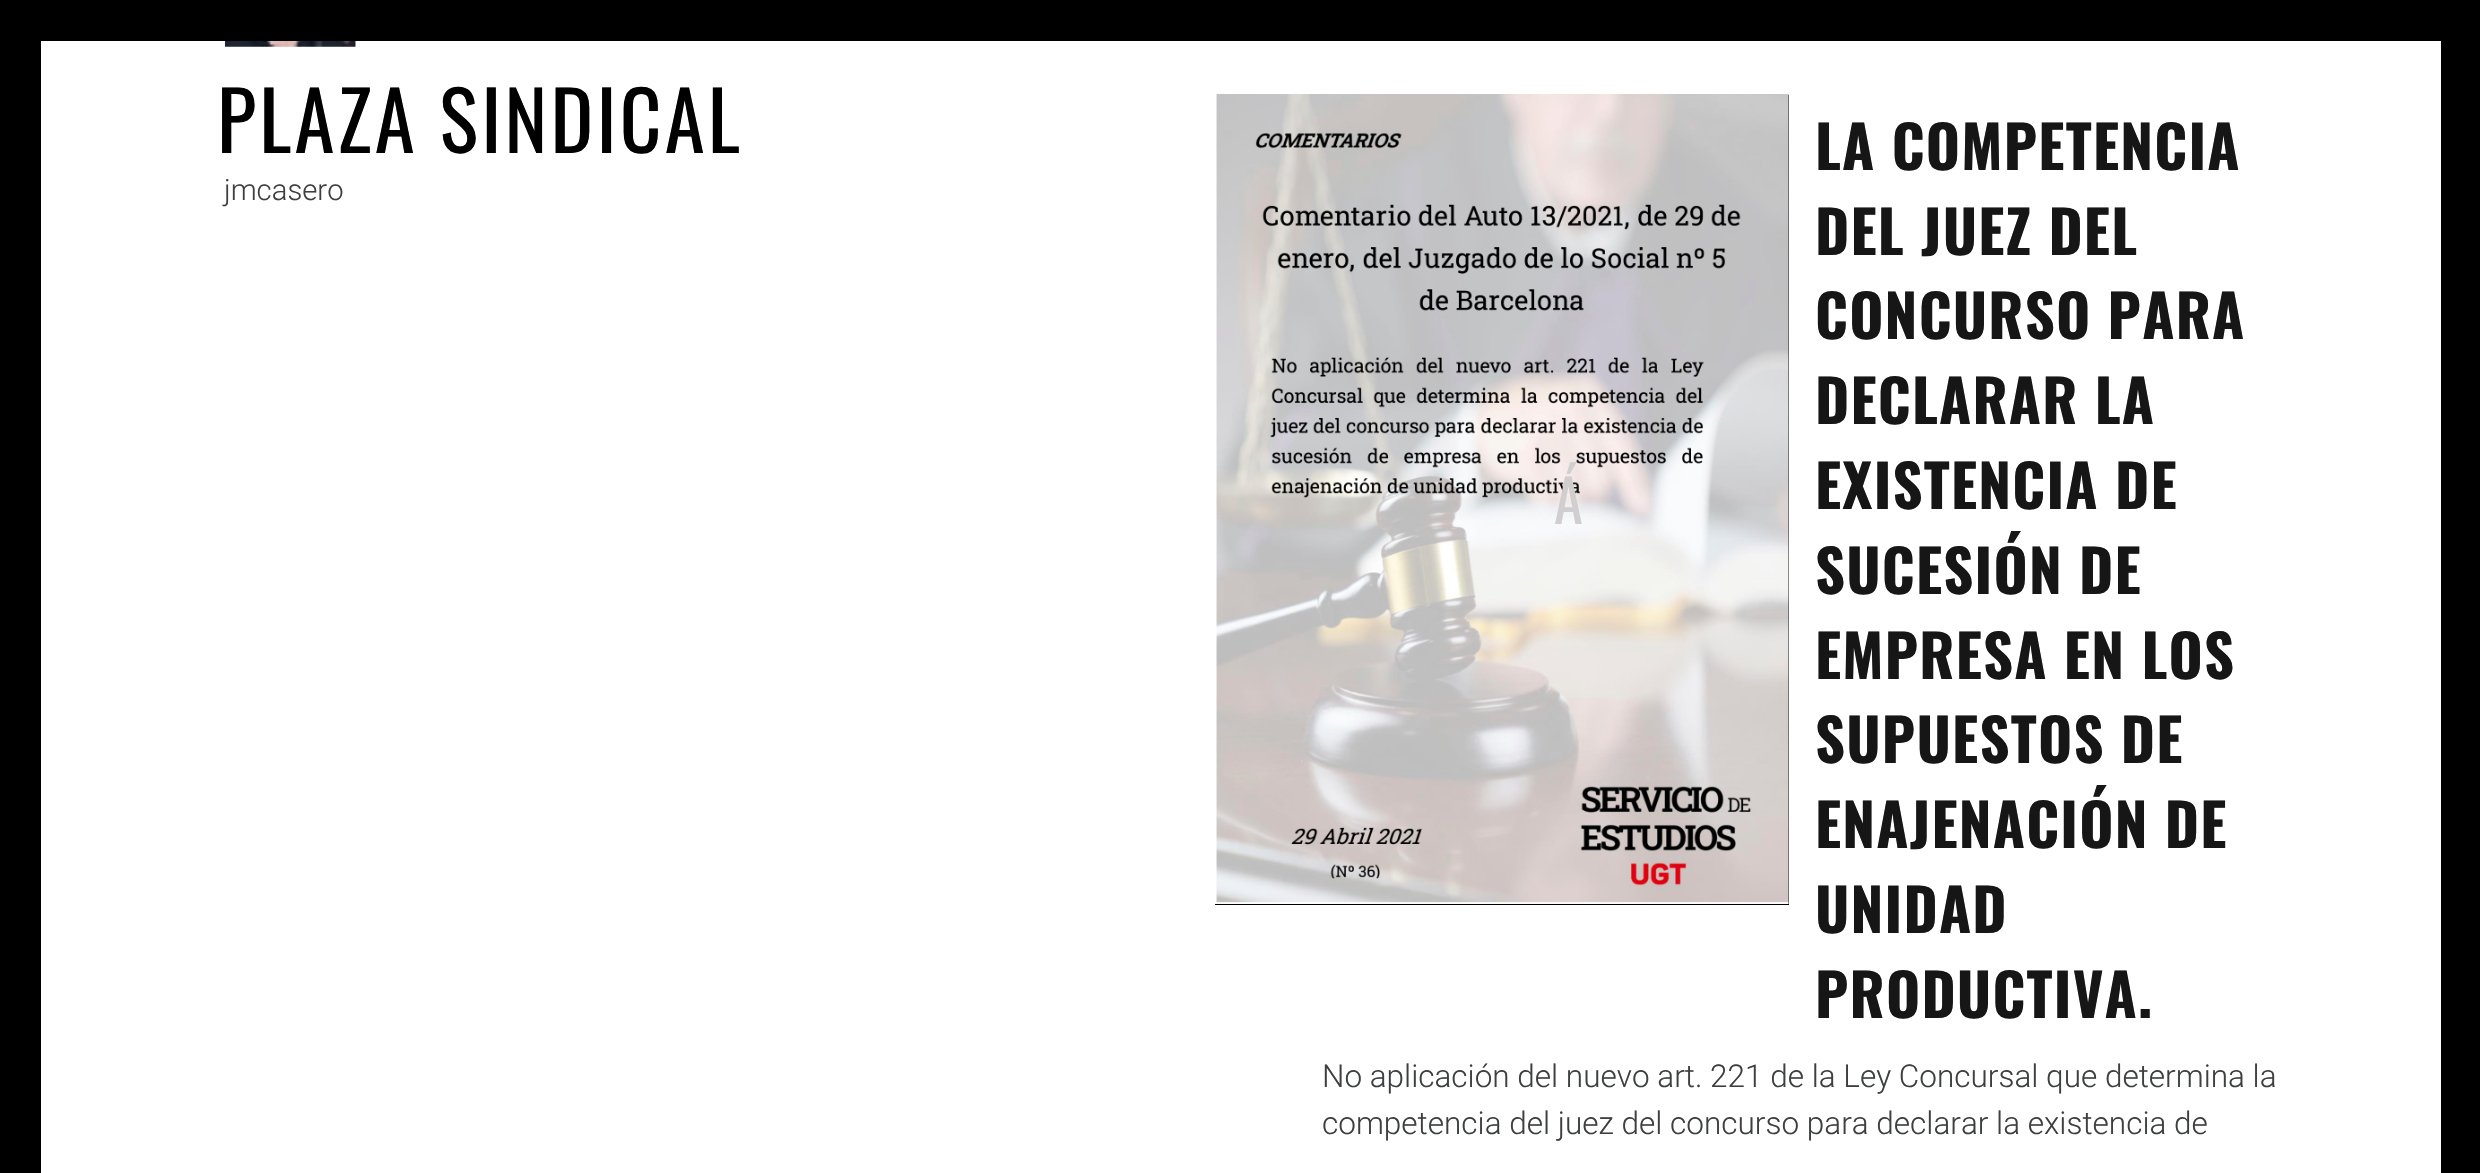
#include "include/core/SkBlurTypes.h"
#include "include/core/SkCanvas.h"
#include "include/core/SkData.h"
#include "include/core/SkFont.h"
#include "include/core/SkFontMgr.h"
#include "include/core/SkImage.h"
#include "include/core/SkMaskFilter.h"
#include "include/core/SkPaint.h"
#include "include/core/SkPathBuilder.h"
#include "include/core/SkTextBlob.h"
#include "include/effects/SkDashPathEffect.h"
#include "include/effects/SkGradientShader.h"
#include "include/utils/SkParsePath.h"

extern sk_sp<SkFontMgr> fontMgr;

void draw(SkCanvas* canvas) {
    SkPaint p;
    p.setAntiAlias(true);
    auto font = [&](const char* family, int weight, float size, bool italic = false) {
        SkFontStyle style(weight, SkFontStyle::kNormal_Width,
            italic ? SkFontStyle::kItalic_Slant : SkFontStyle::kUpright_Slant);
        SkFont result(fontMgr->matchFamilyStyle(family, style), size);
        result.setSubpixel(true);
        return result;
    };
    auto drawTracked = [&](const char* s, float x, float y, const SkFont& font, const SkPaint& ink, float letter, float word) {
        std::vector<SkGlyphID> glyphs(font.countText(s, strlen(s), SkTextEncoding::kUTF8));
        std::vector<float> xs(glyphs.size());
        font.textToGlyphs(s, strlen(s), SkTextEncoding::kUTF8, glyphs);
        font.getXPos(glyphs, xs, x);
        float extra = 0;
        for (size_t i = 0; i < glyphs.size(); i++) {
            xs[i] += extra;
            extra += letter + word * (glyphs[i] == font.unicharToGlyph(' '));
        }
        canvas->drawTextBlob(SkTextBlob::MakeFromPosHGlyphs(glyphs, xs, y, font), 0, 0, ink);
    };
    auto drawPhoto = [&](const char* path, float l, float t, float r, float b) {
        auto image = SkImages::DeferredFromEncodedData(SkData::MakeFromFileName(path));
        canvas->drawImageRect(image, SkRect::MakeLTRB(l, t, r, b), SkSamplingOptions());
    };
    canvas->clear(0xFFFFFFFF);
    {
        const struct { float l, t, r, b; SkColor color; } items[] = {
            {2441, 41, 2480, 1173, 0xFF000000},
            {0, 41, 41, 1173, 0xFF000000},
            {0, 0, 2480, 41, 0xFF000000},
        };
        for (auto [l, t, r, b, color] : items) {
            p.setColor(color);
            canvas->drawRect(SkRect::MakeLTRB(l, t, r, b), p);
        }
    }
    drawPhoto("media/1.png", 225, 41, 356, 47);
    auto font1 = font("Oswald", 400, 81);
    drawTracked("PLAZA SINDICAL", 217, 153, font1, p, 3.25f, 0);
    auto font2 = font("Roboto", 300, 29.25f);
    p.setColor(0xFF3E3F40);
    canvas->drawString("jmcasero", 224, 200, font2, p);
    p.setColor(0xFF000000);
    canvas->drawRect(SkRect::MakeLTRB(1215, 95, 1789, 905), p);
    drawPhoto("media/2.png", 1215, 94, 1789, 904);
    auto font3 = font("Oswald", 400, 58.5f);
    p.setColor(0xFFD0CECE);
    drawTracked("Á", 1554, 524, font3, p, 2, 0);
    auto font4 = font("Oswald", 700, 58.5f);
    p.setColor(0xFF171617);
    {
        const struct { const char* s; float x, y; } items[] = {
            {"LA COMPETENCIA", 1815, 170},
            {"DEL JUEZ DEL", 1815, 255},
            {"CONCURSO PARA", 1815, 339},
            {"DECLARAR LA", 1815, 424},
            {"EXISTENCIA DE", 1815, 509},
            {"SUCESIÓN DE", 1815, 594},
            {"EMPRESA EN LOS", 1815, 679},
            {"SUPUESTOS DE", 1815, 763},
            {"ENAJENACIÓN DE", 1815, 848},
            {"UNIDAD", 1815, 933},
            {"PRODUCTIVA.", 1815, 1018},
        };
        for (auto [s, x, y] : items) {
            drawTracked(s, x, y, font4, p, 1.2f, 0);
        }
    }
    auto font5 = font("Roboto", 300, 31.5f);
    p.setColor(0xFF3E3F40);
    canvas->drawString("No aplicación del nuevo art. 221 de la Ley Concursal que determina la", 1322, 1087, font5, p);
    canvas->drawString("competencia del juez del concurso para declarar la existencia de", 1322, 1134, font5, p);
}
